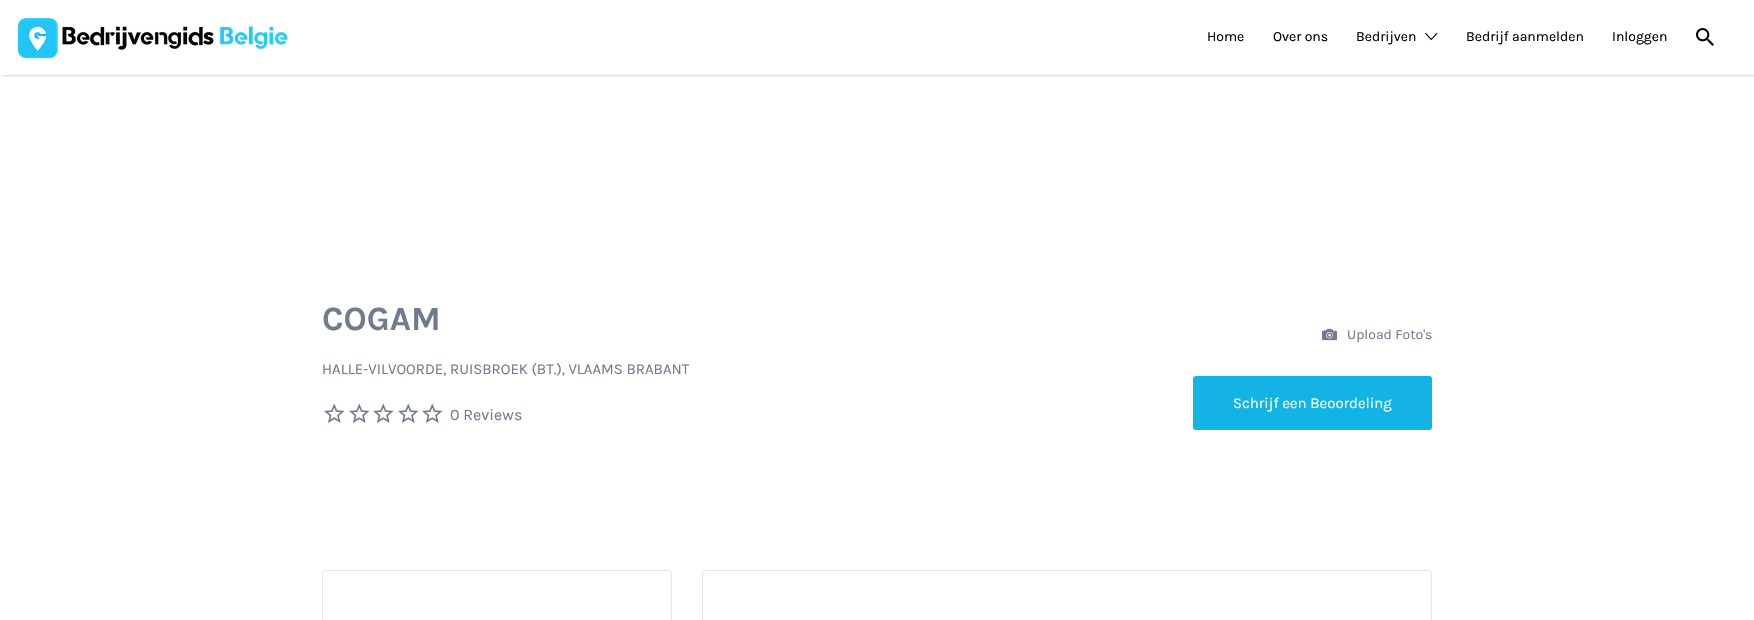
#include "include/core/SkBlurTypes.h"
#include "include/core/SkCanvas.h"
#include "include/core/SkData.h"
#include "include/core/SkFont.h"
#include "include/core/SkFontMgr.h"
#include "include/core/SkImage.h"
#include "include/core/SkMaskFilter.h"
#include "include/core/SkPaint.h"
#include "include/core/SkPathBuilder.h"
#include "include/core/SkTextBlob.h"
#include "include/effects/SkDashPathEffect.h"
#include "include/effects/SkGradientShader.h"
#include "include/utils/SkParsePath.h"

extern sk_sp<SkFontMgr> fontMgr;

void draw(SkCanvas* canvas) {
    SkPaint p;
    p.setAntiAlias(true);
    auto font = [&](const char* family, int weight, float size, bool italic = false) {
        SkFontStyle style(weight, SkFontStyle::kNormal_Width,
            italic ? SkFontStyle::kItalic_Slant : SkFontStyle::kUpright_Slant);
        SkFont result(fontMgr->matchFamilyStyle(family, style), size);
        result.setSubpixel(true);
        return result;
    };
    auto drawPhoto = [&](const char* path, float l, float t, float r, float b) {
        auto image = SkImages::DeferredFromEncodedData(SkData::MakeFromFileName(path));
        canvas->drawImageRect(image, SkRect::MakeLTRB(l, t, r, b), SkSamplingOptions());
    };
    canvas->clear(0xFFFFFFFF);
    canvas->save();
    canvas->clipRect(SkRect::MakeLTRB(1, 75, 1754, 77));
    p.setColor(0x4D000000);
    p.setMaskFilter(SkMaskFilter::MakeBlur(kNormal_SkBlurStyle, 1.5f));
    canvas->drawRect(SkRect::MakeLTRB(2, 0, 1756, 75), p);
    p.setMaskFilter(nullptr);
    canvas->restore();
    drawPhoto("media/1.png", 17, 18, 290, 59);
    auto font1 = font("Karla", 400, 14);
    p.setColor(0xFF000000);
    {
        const struct { const char* s; float x, y; } items[] = {
            {"Home", 1207, 41},
            {"Over ons", 1273, 41},
            {"Bedrijven", 1356, 41},
        };
        for (auto [s, x, y] : items) {
            canvas->drawString(s, x, y, font1, p);
        }
    }
    drawPhoto("media/2.png", 1425, 32, 1438, 41);
    canvas->drawString("Bedrijf aanmelden", 1466, 41, font1, p);
    canvas->drawString("Inloggen", 1612, 41, font1, p);
    drawPhoto("media/3.png", 1696, 28, 1714, 46);
    auto font2 = font("Karla", 700, 34);
    p.setColor(0xFF717A8F);
    canvas->drawString("COGAM", 322, 330, font2, p);
    auto font3 = font("Karla", 400, 15);
    canvas->drawString("HALLE-VILVOORDE, RUISBROEK (BT.), VLAAMS BRABANT", 322, 374, font3, p);
    drawPhoto("media/4.png", 324, 403, 345, 423);
    drawPhoto("media/4.png", 349, 403, 370, 423);
    drawPhoto("media/4.png", 373, 403, 394, 423);
    drawPhoto("media/4.png", 398, 403, 419, 423);
    drawPhoto("media/4.png", 422, 403, 443, 423);
    auto font4 = font("Karla", 400, 16);
    canvas->drawString("0 Reviews", 450, 420, font4, p);
    drawPhoto("media/5.png", 1322, 328, 1337, 341);
    canvas->drawString("Upload Foto's", 1347, 339, font1, p);
    p.setColor(0xFF13B3E5);
    canvas->drawRoundRect(SkRect::MakeLTRB(1193, 376, 1432, 430), 3, 3, p);
    p.setColor(0xFFFFFFFF);
    canvas->drawString("Schrijf een Beoordeling", 1233, 408, font3, p);
    p.setStyle(SkPaint::kStroke_Style);
    p.setStrokeWidth(1);
    p.setColor(0xFFE5E5E5);
    canvas->drawRoundRect(SkRect::MakeLTRB(322.5f, 570.5f, 671.5f, 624.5f), 3.5f, 3.5f, p);
    canvas->drawRoundRect(SkRect::MakeLTRB(702.5f, 570.5f, 1431.5f, 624.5f), 3.5f, 3.5f, p);
}
